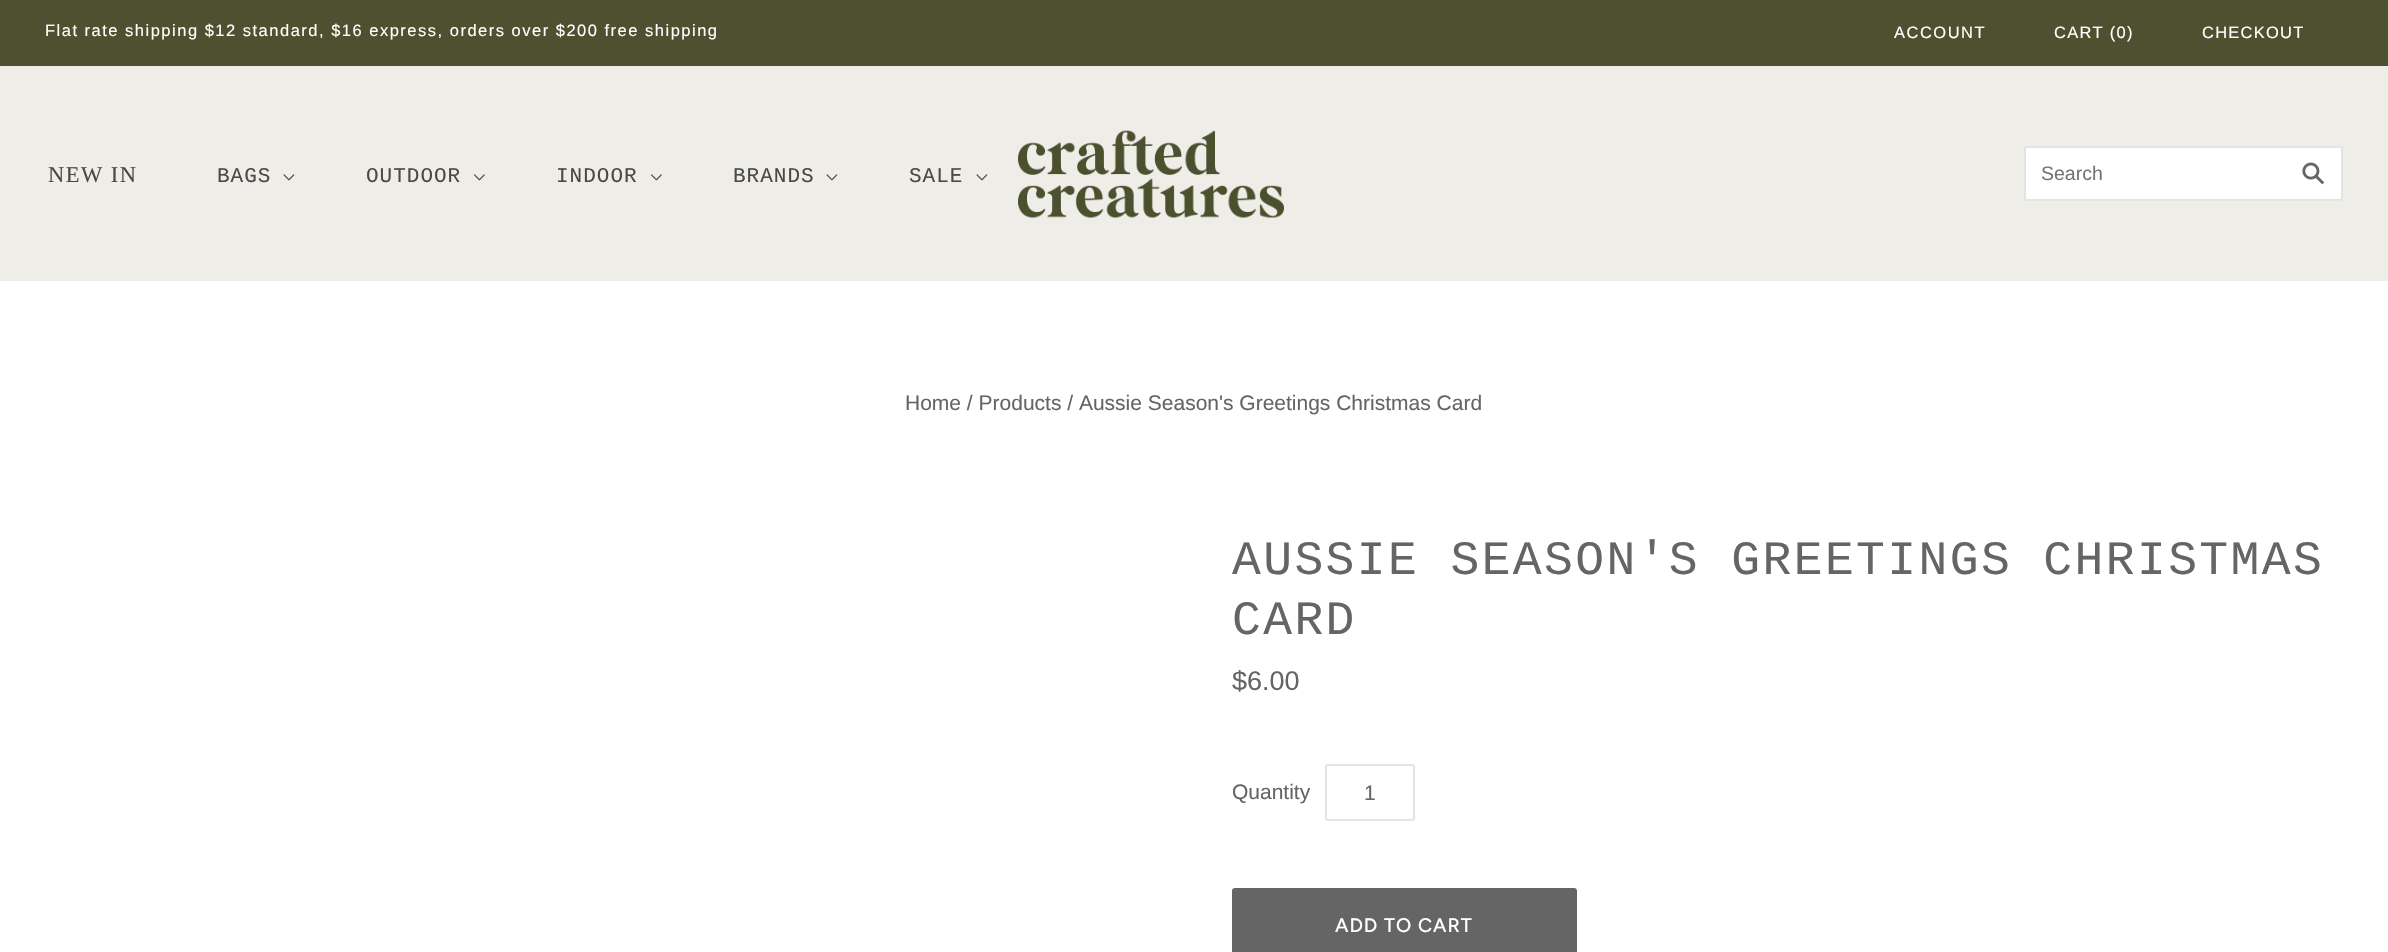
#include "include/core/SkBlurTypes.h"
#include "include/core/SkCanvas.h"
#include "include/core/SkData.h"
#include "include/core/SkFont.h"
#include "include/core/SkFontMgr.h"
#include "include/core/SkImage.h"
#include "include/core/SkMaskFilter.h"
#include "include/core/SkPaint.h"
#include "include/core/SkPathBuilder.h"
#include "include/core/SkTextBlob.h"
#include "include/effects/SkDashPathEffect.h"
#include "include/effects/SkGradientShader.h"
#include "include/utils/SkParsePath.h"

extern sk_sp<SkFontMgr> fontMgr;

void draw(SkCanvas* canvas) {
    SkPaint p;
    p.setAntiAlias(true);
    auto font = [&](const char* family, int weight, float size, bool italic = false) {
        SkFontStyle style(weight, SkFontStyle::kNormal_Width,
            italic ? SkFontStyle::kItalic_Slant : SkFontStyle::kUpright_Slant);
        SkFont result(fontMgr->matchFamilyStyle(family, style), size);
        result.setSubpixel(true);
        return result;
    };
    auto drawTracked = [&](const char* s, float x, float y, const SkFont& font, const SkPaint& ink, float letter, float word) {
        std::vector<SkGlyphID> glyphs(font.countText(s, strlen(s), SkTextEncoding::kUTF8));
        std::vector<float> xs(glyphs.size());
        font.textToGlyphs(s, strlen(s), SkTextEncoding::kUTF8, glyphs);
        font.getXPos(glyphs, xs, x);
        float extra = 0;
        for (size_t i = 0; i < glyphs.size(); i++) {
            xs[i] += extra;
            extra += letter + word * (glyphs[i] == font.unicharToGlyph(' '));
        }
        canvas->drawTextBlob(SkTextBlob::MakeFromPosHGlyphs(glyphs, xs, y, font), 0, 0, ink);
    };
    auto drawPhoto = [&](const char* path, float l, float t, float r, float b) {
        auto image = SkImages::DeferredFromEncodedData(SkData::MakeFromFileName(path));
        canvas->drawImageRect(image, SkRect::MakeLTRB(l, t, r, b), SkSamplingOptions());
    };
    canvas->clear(0xFFFFFFFF);
    p.setColor(0xFFEFEDE8);
    canvas->drawRect(SkRect::MakeLTRB(0, 66, 2388, 281), p);
    p.setColor(0xFF4E5130);
    canvas->drawRect(SkRect::MakeLTRB(0, 0, 2388, 66), p);
    auto font1 = font("Liberation Sans", 400, 16.5f);
    p.setColor(0xFFFFFFFF);
    drawTracked("Flat rate shipping $12 standard, $16 express, orders over $200 free shipping", 45, 36, font1, p, 1.5f, 0);
    drawTracked("ACCOUNT", 1894, 38, font1, p, 1.5f, 0);
    drawTracked("CART (0)", 2054, 38, font1, p, 1.25f, 0);
    drawTracked("CHECKOUT", 2202, 38, font1, p, 1.25f, 0);
    auto font2 = font("Liberation Serif", 400, 22.5f);
    p.setColor(0xFF494949);
    drawTracked("NEW IN", 48, 182, font2, p, 1.5f, 0);
    auto font3 = font("Liberation Mono", 400, 21);
    drawTracked("BAGS", 217, 182, font3, p, 1, 0);
    drawPhoto("media/1.png", 283, 174, 295, 181);
    drawTracked("OUTDOOR", 366, 182, font3, p, 1, 0);
    drawPhoto("media/2.png", 474, 174, 485, 181);
    drawTracked("INDOOR", 556, 182, font3, p, 1, 0);
    drawPhoto("media/2.png", 651, 174, 662, 181);
    drawTracked("BRANDS", 733, 182, font3, p, 1, 0);
    drawPhoto("media/1.png", 826, 174, 838, 181);
    drawTracked("SALE", 909, 182, font3, p, 1, 0);
    drawPhoto("media/1.png", 976, 174, 988, 181);
    drawPhoto("media/3.png", 1018, 130, 1284, 218);
    p.setColor(0xFFFFFFFF);
    canvas->drawRoundRect(SkRect::MakeLTRB(2025, 147, 2342, 200), 2, 2, p);
    p.setStyle(SkPaint::kStroke_Style);
    p.setStrokeWidth(2);
    p.setColor(0xFFE4E4E4);
    canvas->drawRoundRect(SkRect::MakeLTRB(2025, 147, 2342, 200), 2, 2, p);
    auto font4 = font("Liberation Sans", 400, 19.5f);
    p.setStyle(SkPaint::kFill_Style);
    p.setColor(0xFF757575);
    canvas->drawString("Search", 2041, 180, font4, p);
    drawPhoto("media/4.png", 2302, 162, 2325, 185);
    auto font5 = font("Liberation Sans", 400, 21);
    p.setColor(0xFF656565);
    canvas->drawString("Home / Products / Aussie Season's Greetings Christmas Card", 905, 410, font5, p);
    auto font6 = font("Liberation Mono", 400, 48);
    drawTracked("AUSSIE SEASON'S GREETINGS CHRISTMAS", 1232, 574, font6, p, 2.4f, 0);
    drawTracked("CARD", 1232, 634, font6, p, 2.4f, 0);
    auto font7 = font("Liberation Sans", 400, 27);
    canvas->drawString("$6.00", 1232, 690, font7, p);
    canvas->drawString("Quantity", 1232, 799, font5, p);
    p.setStyle(SkPaint::kStroke_Style);
    p.setColor(0xFFE4E4E4);
    canvas->drawRoundRect(SkRect::MakeLTRB(1326, 765, 1414, 820), 2, 2, p);
    p.setStyle(SkPaint::kFill_Style);
    p.setColor(0xFF656565);
    canvas->drawString("1", 1364, 800, font5, p);
    canvas->drawRoundRect(SkRect::MakeLTRB(1232, 888, 1577, 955), 3, 3, p);
    auto font8 = font("Figtree", 500, 19.5f);
    p.setColor(0xFFFFFFFF);
    drawTracked("ADD TO CART", 1335, 932, font8, p, 1, 0);
}
